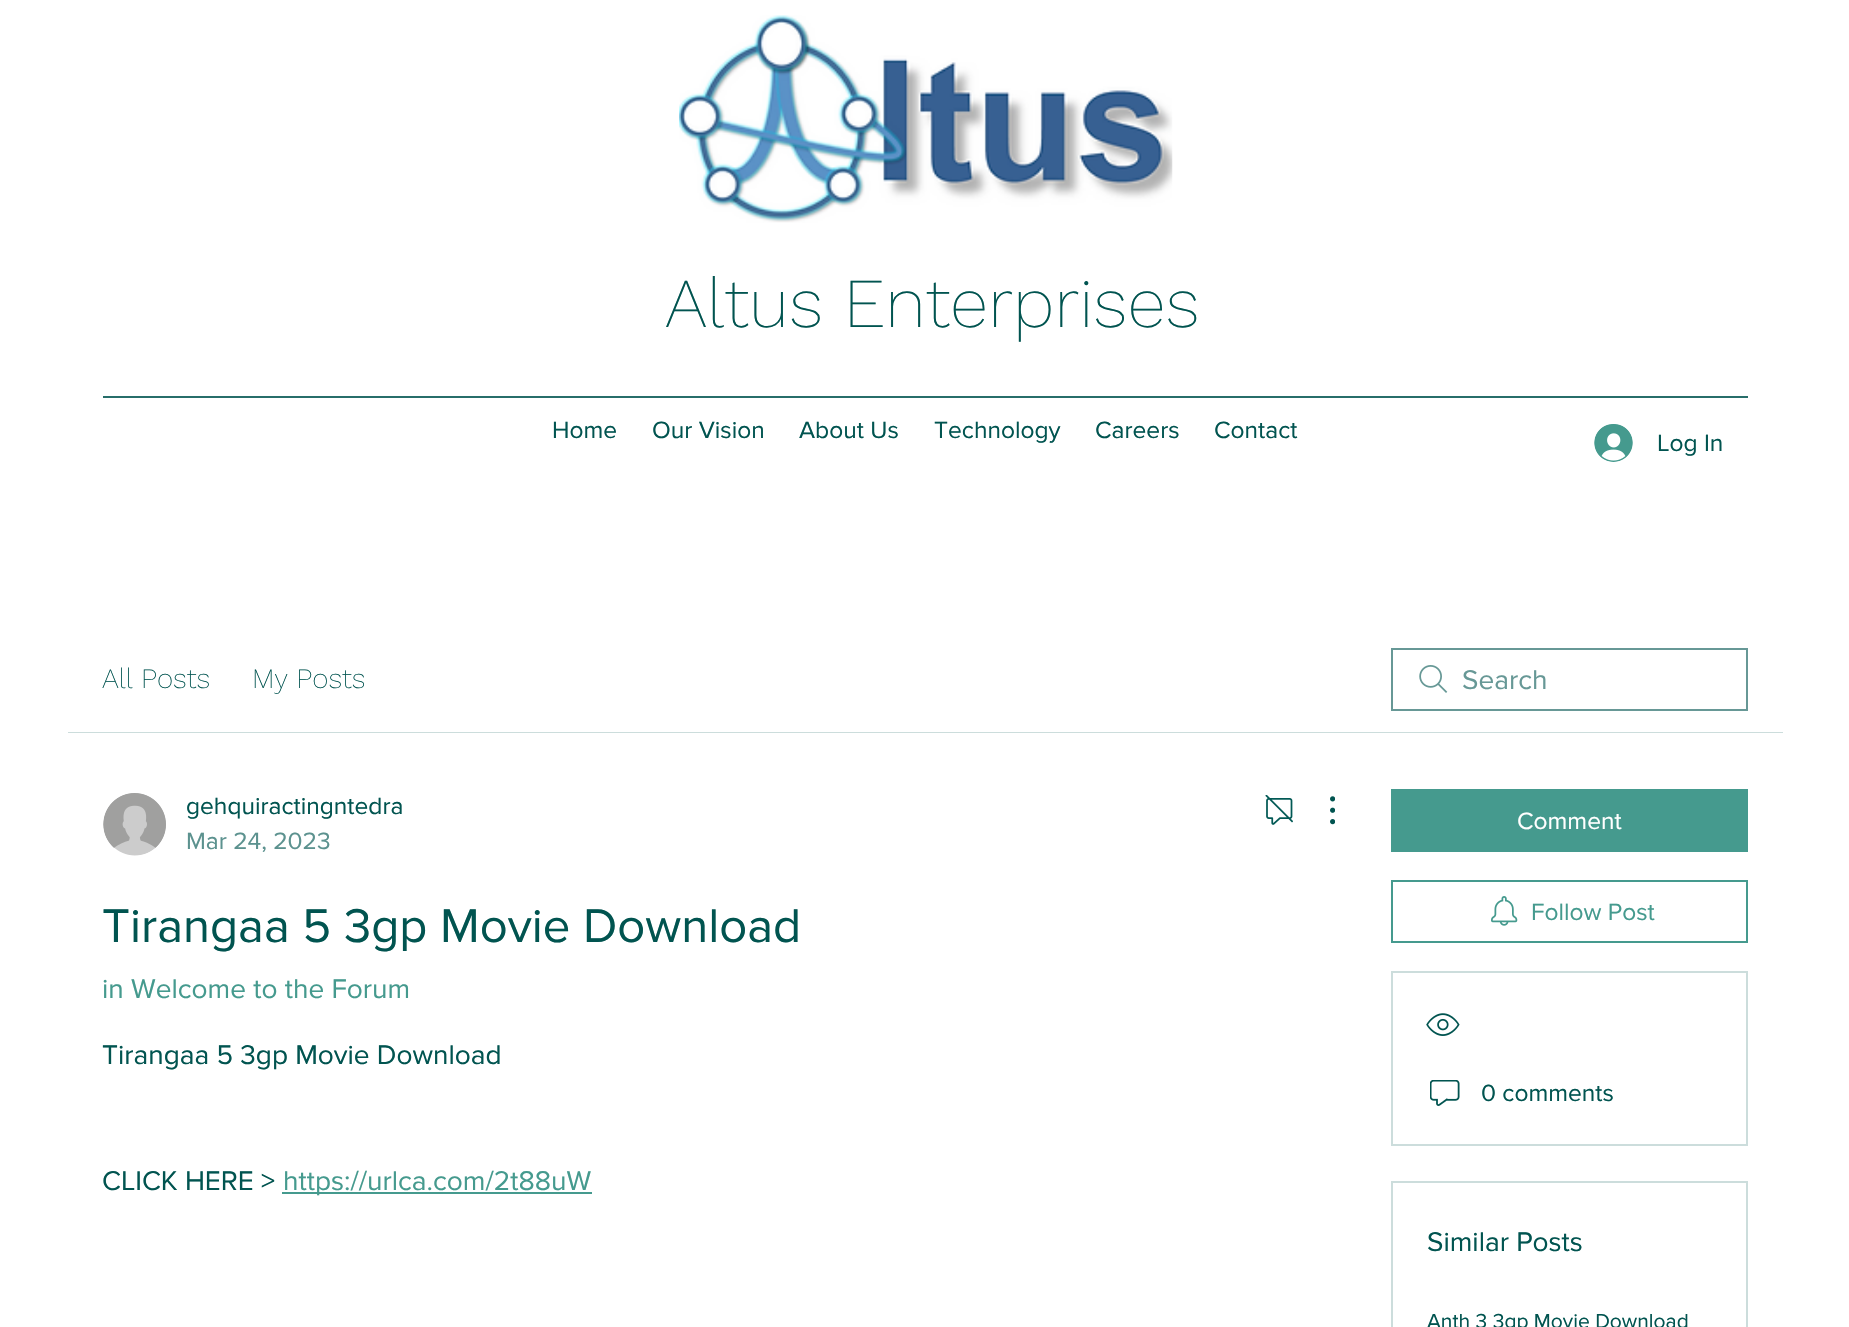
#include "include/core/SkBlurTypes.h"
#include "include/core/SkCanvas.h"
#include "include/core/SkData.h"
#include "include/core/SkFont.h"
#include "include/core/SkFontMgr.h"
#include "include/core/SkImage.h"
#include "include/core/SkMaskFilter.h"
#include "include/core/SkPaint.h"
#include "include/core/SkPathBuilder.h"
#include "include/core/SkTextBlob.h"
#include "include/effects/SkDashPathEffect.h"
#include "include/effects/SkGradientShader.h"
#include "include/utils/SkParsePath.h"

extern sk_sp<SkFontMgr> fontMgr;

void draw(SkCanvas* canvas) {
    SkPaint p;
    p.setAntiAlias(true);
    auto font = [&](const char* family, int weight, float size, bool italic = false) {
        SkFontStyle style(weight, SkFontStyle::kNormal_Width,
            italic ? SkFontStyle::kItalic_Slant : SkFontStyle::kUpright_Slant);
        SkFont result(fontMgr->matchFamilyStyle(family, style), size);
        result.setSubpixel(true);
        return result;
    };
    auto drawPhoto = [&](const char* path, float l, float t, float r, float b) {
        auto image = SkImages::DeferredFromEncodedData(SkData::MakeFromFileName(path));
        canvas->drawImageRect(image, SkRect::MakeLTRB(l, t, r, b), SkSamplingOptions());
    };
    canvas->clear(0xFFFFFFFF);
    drawPhoto("media/1.png", 679, 15, 1173, 223);
    auto font1 = font("Work Sans", 200, 70);
    p.setColor(0xFF015450);
    canvas->drawString("Altus Enterprises", 665, 327, font1, p);
    p.setColor(0xFF276E6A);
    canvas->drawRect(SkRect::MakeLTRB(103, 396, 1748, 398), p);
    auto font2 = font("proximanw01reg", 400, 24.5f);
    p.setColor(0xFF015450);
    {
        const struct { const char* s; float x, y; } items[] = {
            {"Home", 552, 438},
            {"Our Vision", 652, 438},
            {"About Us", 799, 438},
            {"Technology", 934, 438},
            {"Careers", 1095, 438},
            {"Contact", 1214, 438},
        };
        for (auto [s, x, y] : items) {
            canvas->drawString(s, x, y, font2, p);
        }
    }
    drawPhoto("media/2.png", 1594, 424, 1633, 462);
    canvas->drawString("Log In", 1657, 451, font2, p);
    p.setColor(0xFFCCDDDC);
    canvas->drawRect(SkRect::MakeLTRB(68, 732, 1783, 733), p);
    auto font3 = font("Work Sans", 200, 28);
    p.setColor(0xFF015450);
    canvas->drawString("All Posts", 102, 688, font3, p);
    canvas->drawString("My Posts", 252, 688, font3, p);
    drawPhoto("media/3.png", 1419, 665, 1448, 693);
    p.setStyle(SkPaint::kStroke_Style);
    p.setStrokeWidth(2);
    p.setColor(0xFF679896);
    canvas->drawRect(SkRect::MakeLTRB(1392, 649, 1747, 710), p);
    auto font4 = font("proximanw01reg", 400, 28);
    p.setStyle(SkPaint::kFill_Style);
    canvas->drawString("Search", 1462, 689, font4, p);
    drawPhoto("media/4.png", 103, 793, 166, 856);
    p.setColor(0xFF015450);
    canvas->drawString("gehquiractingntedra", 186, 814, font2, p);
    p.setColor(0xFF5C928F);
    canvas->drawString("Mar 24, 2023", 186, 849, font2, p);
    drawPhoto("media/5.png", 1265, 795, 1293, 825);
    drawPhoto("media/6.png", 1330, 796, 1335, 825);
    auto font5 = font("proximanw01reg", 400, 49);
    p.setColor(0xFF015450);
    canvas->drawString("Tirangaa 5 3gp Movie Download", 102, 942, font5, p);
    p.setColor(0xFF459A8E);
    canvas->drawString("in Welcome to the Forum", 102, 998, font4, p);
    p.setColor(0xFF015450);
    canvas->drawString("Tirangaa 5 3gp Movie Download", 102, 1064, font4, p);
    canvas->drawString("CLICK HERE >", 102, 1190, font4, p);
    p.setColor(0xFF459A8E);
    canvas->drawRect(SkRect::MakeLTRB(282, 1192, 592, 1194), p);
    canvas->drawString("https://urlca.com/2t88uW", 283, 1190, font4, p);
    canvas->drawRect(SkRect::MakeLTRB(1391, 789, 1748, 852), p);
    p.setColor(0xFFFFFFFF);
    canvas->drawString("Comment", 1517, 829, font2, p);
    p.setStyle(SkPaint::kStroke_Style);
    p.setColor(0xFF459A8E);
    canvas->drawRect(SkRect::MakeLTRB(1392, 881, 1747, 942), p);
    drawPhoto("media/7.png", 1491, 896, 1518, 926);
    p.setStyle(SkPaint::kFill_Style);
    canvas->drawString("Follow Post", 1531, 920, font2, p);
    p.setStyle(SkPaint::kStroke_Style);
    p.setColor(0xFFCCDDDC);
    canvas->drawRect(SkRect::MakeLTRB(1392, 972, 1747, 1145), p);
    drawPhoto("media/8.png", 1426, 1013, 1460, 1036);
    drawPhoto("media/9.png", 1430, 1080, 1460, 1106);
    p.setStyle(SkPaint::kFill_Style);
    p.setColor(0xFF015450);
    canvas->drawString("0 comments", 1481, 1101, font2, p);
    p.setStyle(SkPaint::kStroke_Style);
    p.setColor(0xFFCCDDDC);
    canvas->drawRect(SkRect::MakeLTRB(1392, 1182, 1747, 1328), p);
    p.setStyle(SkPaint::kFill_Style);
    p.setColor(0xFF015450);
    canvas->drawString("Similar Posts", 1427, 1251, font4, p);
    auto font6 = font("proximanw01reg", 400, 21);
    canvas->drawString("Anth 3 3gp Movie Download", 1427, 1328, font6, p);
}
